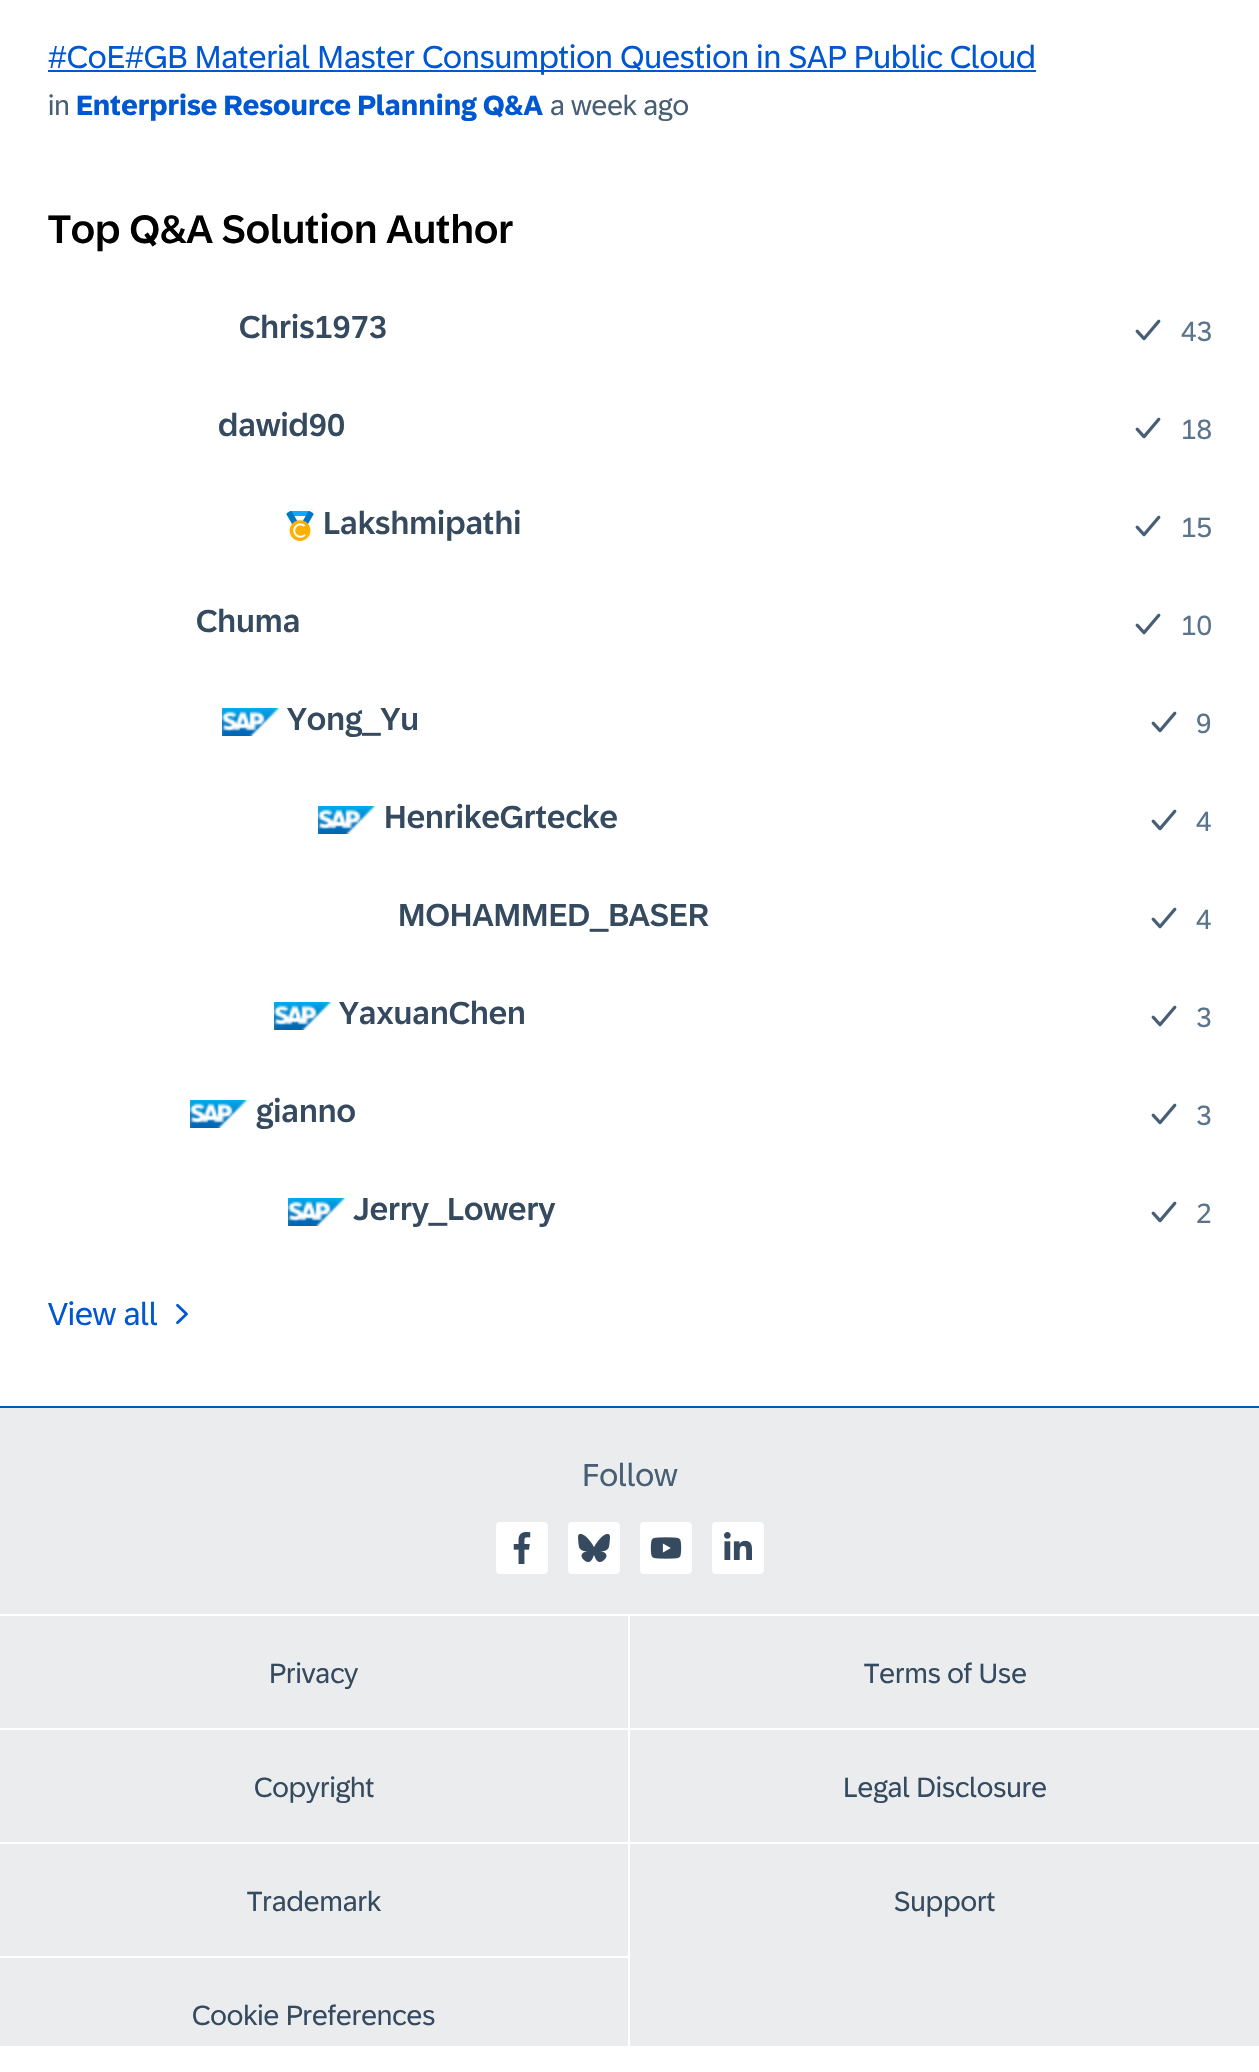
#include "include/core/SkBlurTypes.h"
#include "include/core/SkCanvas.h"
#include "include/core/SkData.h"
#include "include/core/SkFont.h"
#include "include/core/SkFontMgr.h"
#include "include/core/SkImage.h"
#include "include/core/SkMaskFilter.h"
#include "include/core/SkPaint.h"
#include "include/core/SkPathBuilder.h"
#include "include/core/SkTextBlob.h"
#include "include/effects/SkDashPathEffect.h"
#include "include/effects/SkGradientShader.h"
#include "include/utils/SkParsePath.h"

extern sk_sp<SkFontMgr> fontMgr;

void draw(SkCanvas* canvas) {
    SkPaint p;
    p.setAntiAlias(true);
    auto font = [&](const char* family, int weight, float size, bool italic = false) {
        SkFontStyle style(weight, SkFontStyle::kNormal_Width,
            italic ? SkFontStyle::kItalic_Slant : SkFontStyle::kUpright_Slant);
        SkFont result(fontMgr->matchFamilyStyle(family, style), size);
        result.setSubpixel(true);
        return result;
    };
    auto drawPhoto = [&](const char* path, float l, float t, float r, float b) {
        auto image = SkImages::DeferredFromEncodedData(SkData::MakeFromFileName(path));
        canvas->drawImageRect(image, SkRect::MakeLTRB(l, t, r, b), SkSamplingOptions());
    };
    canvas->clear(0xFFFFFFFF);
    p.setColor(0xFF0057D2);
    canvas->drawRect(SkRect::MakeLTRB(48, 70, 1036, 72), p);
    auto font1 = font("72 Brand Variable", 400, 32);
    canvas->drawString("#CoE#GB Material Master Consumption Question in SAP Public Cloud", 48, 68, font1, p);
    auto font2 = font("72 Brand Variable", 400, 28);
    p.setColor(0xFF475E75);
    canvas->drawString("in", 48, 115, font2, p);
    auto font3 = font("72 Brand Variable", 700, 28);
    p.setColor(0xFF0057D2);
    canvas->drawString("Enterprise Resource Planning Q&A", 76, 115, font3, p);
    p.setColor(0xFF475E75);
    canvas->drawString("a week ago", 550, 115, font2, p);
    auto font4 = font("72 Brand Variable", 500, 40);
    p.setColor(0xFF000000);
    canvas->drawString("Top Q&A Solution Author", 48, 243, font4, p);
    auto font5 = font("72 Brand Variable", 500, 32);
    p.setColor(0xFF354A5F);
    canvas->drawString("Chris1973", 239, 338, font5, p);
    drawPhoto("media/1.png", 1135, 319, 1161, 341);
    p.setColor(0xFF5B738B);
    canvas->drawString("43", 1181, 341, font2, p);
    p.setColor(0xFF354A5F);
    canvas->drawString("dawid90", 218, 436, font5, p);
    drawPhoto("media/1.png", 1135, 417, 1161, 439);
    p.setColor(0xFF5B738B);
    canvas->drawString("18", 1181, 439, font2, p);
    drawPhoto("media/2.png", 286, 511, 314, 541);
    p.setColor(0xFF354A5F);
    canvas->drawString("Lakshmipathi", 323, 534, font5, p);
    drawPhoto("media/1.png", 1135, 515, 1161, 537);
    p.setColor(0xFF5B738B);
    canvas->drawString("15", 1181, 537, font2, p);
    p.setColor(0xFF354A5F);
    canvas->drawString("Chuma", 196, 632, font5, p);
    drawPhoto("media/1.png", 1135, 613, 1161, 635);
    p.setColor(0xFF5B738B);
    canvas->drawString("10", 1181, 635, font2, p);
    drawPhoto("media/3.png", 222, 708, 280, 736);
    p.setColor(0xFF354A5F);
    canvas->drawString("Yong_Yu", 287, 730, font5, p);
    drawPhoto("media/1.png", 1151, 711, 1177, 733);
    p.setColor(0xFF5B738B);
    canvas->drawString("9", 1196, 733, font2, p);
    drawPhoto("media/3.png", 318, 806, 376, 834);
    p.setColor(0xFF354A5F);
    canvas->drawString("HenrikeGrtecke", 384, 828, font5, p);
    drawPhoto("media/1.png", 1151, 809, 1177, 831);
    p.setColor(0xFF5B738B);
    canvas->drawString("4", 1196, 831, font2, p);
    p.setColor(0xFF354A5F);
    canvas->drawString("MOHAMMED_BASER", 398, 926, font5, p);
    drawPhoto("media/1.png", 1151, 907, 1177, 929);
    p.setColor(0xFF5B738B);
    canvas->drawString("4", 1196, 929, font2, p);
    drawPhoto("media/3.png", 274, 1002, 332, 1030);
    p.setColor(0xFF354A5F);
    canvas->drawString("YaxuanChen", 339, 1024, font5, p);
    drawPhoto("media/1.png", 1151, 1005, 1177, 1027);
    p.setColor(0xFF5B738B);
    canvas->drawString("3", 1196, 1027, font2, p);
    drawPhoto("media/3.png", 190, 1100, 248, 1128);
    p.setColor(0xFF354A5F);
    canvas->drawString("gianno", 256, 1122, font5, p);
    drawPhoto("media/1.png", 1151, 1103, 1177, 1125);
    p.setColor(0xFF5B738B);
    canvas->drawString("3", 1196, 1125, font2, p);
    drawPhoto("media/3.png", 288, 1198, 346, 1226);
    p.setColor(0xFF354A5F);
    canvas->drawString("Jerry_Lowery", 353, 1220, font5, p);
    drawPhoto("media/1.png", 1151, 1201, 1177, 1223);
    p.setColor(0xFF5B738B);
    canvas->drawString("2", 1196, 1223, font2, p);
    p.setColor(0xFF0057D2);
    canvas->drawString("View all", 48, 1325, font1, p);
    drawPhoto("media/4.png", 176, 1303, 188, 1325);
    p.setColor(0xFF0058BF);
    canvas->drawRect(SkRect::MakeLTRB(0, 1406, 1259, 1408), p);
    p.setColor(0xFFEAECEE);
    canvas->drawRect(SkRect::MakeLTRB(0, 1408, 1259, 2046), p);
    p.setColor(0xFF475E75);
    canvas->drawString("Follow", 582, 1486, font1, p);
    p.setColor(0xFFFFFFFF);
    canvas->drawRoundRect(SkRect::MakeLTRB(496, 1522, 548, 1574), 4, 4, p);
    drawPhoto("media/5.png", 513, 1532, 531, 1564);
    canvas->drawRoundRect(SkRect::MakeLTRB(568, 1522, 620, 1574), 4, 4, p);
    drawPhoto("media/6.png", 578, 1533, 610, 1562);
    canvas->drawRoundRect(SkRect::MakeLTRB(640, 1522, 692, 1574), 4, 4, p);
    drawPhoto("media/7.png", 650, 1537, 682, 1559);
    canvas->drawRoundRect(SkRect::MakeLTRB(712, 1522, 764, 1574), 4, 4, p);
    drawPhoto("media/8.png", 724, 1532, 752, 1560);
    canvas->drawRect(SkRect::MakeLTRB(0, 1614, 1259, 1616), p);
    canvas->drawRect(SkRect::MakeLTRB(628, 1614, 630, 1728), p);
    p.setColor(0xFF354A5F);
    canvas->drawString("Privacy", 269, 1683, font2, p);
    canvas->drawString("Terms of Use", 864, 1683, font2, p);
    p.setColor(0xFFFFFFFF);
    canvas->drawRect(SkRect::MakeLTRB(0, 1728, 1259, 1730), p);
    canvas->drawRect(SkRect::MakeLTRB(628, 1728, 630, 1842), p);
    p.setColor(0xFF354A5F);
    canvas->drawString("Copyright", 254, 1797, font2, p);
    canvas->drawString("Legal Disclosure", 843, 1797, font2, p);
    p.setColor(0xFFFFFFFF);
    canvas->drawRect(SkRect::MakeLTRB(0, 1842, 1259, 1844), p);
    canvas->drawRect(SkRect::MakeLTRB(628, 1842, 630, 1956), p);
    p.setColor(0xFF354A5F);
    canvas->drawString("Trademark", 247, 1911, font2, p);
    canvas->drawString("Support", 894, 1911, font2, p);
    p.setColor(0xFFFFFFFF);
    canvas->drawRect(SkRect::MakeLTRB(0, 1956, 630, 1958), p);
    canvas->drawRect(SkRect::MakeLTRB(628, 1956, 630, 2046), p);
    p.setColor(0xFF354A5F);
    canvas->drawString("Cookie Preferences", 192, 2025, font2, p);
}
